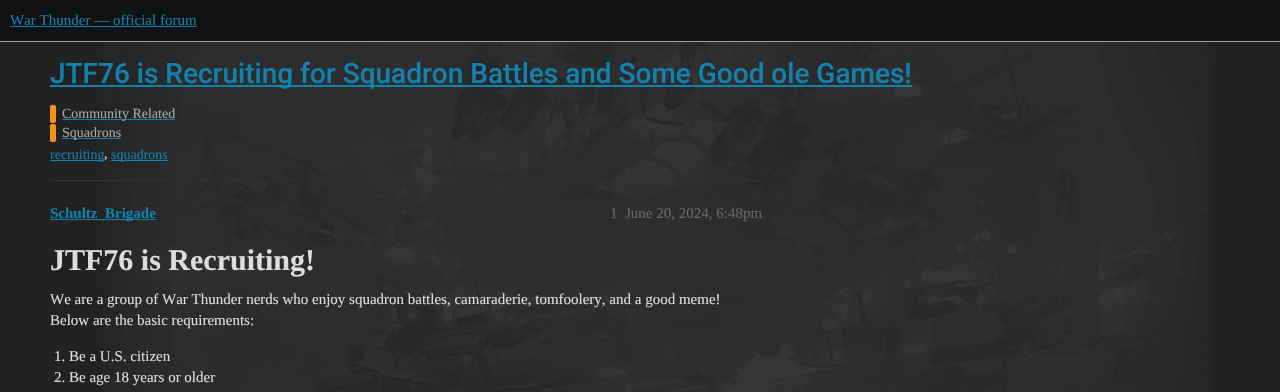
#include "include/core/SkBlurTypes.h"
#include "include/core/SkCanvas.h"
#include "include/core/SkData.h"
#include "include/core/SkFont.h"
#include "include/core/SkFontMgr.h"
#include "include/core/SkImage.h"
#include "include/core/SkMaskFilter.h"
#include "include/core/SkPaint.h"
#include "include/core/SkPathBuilder.h"
#include "include/core/SkTextBlob.h"
#include "include/effects/SkDashPathEffect.h"
#include "include/effects/SkGradientShader.h"
#include "include/utils/SkParsePath.h"

extern sk_sp<SkFontMgr> fontMgr;

void draw(SkCanvas* canvas) {
    SkPaint p;
    p.setAntiAlias(true);
    auto font = [&](const char* family, int weight, float size, bool italic = false) {
        SkFontStyle style(weight, SkFontStyle::kNormal_Width,
            italic ? SkFontStyle::kItalic_Slant : SkFontStyle::kUpright_Slant);
        SkFont result(fontMgr->matchFamilyStyle(family, style), size);
        result.setSubpixel(true);
        return result;
    };
    auto drawPhoto = [&](const char* path, float l, float t, float r, float b) {
        auto image = SkImages::DeferredFromEncodedData(SkData::MakeFromFileName(path));
        canvas->drawImageRect(image, SkRect::MakeLTRB(l, t, r, b), SkSamplingOptions());
    };
    canvas->clear(0xFF222222);
    drawPhoto("media/1.png", 103, 42, 1211, 392);
    p.setColor(0xFF111111);
    canvas->drawRect(SkRect::MakeLTRB(0, 0, 1280, 41), p);
    p.setColor(0xFFA4A4A4);
    canvas->drawRect(SkRect::MakeLTRB(0, 41, 1280, 42), p);
    auto font1 = font("Liberation Serif", 400, 15);
    p.setColor(0xFF0F82AF);
    canvas->drawString("War Thunder — official forum", 10, 25, font1, p);
    canvas->drawRect(SkRect::MakeLTRB(10, 26, 197, 27), p);
    canvas->drawRect(SkRect::MakeLTRB(50, 85, 912, 87), p);
    auto font2 = font("Roboto", 500, 28);
    canvas->drawString("JTF76 is Recruiting for Squadron Battles and Some Good ole Games!", 50, 83, font2, p);
    p.setColor(0xFFF7941D);
    canvas->drawRoundRect(SkRect::MakeLTRB(50, 105, 56, 123), 2, 2, p);
    p.setColor(0xFF0F82AF);
    canvas->drawRect(SkRect::MakeLTRB(62, 119, 175, 120), p);
    auto font3 = font("Liberation Serif", 400, 14);
    p.setColor(0xFFA6A6A6);
    canvas->drawString("Community Related", 62, 118, font3, p);
    p.setColor(0xFFF7941D);
    canvas->drawRoundRect(SkRect::MakeLTRB(50, 124, 56, 142), 2, 2, p);
    p.setColor(0xFF0F82AF);
    canvas->drawRect(SkRect::MakeLTRB(62, 138, 121, 139), p);
    p.setColor(0xFFA6A6A6);
    canvas->drawString("Squadrons", 62, 137, font3, p);
    p.setColor(0xFF0F82AF);
    canvas->drawRect(SkRect::MakeLTRB(50, 160, 104, 161), p);
    canvas->drawString("recruiting", 50, 159, font3, p);
    p.setColor(0xFFDDDDDD);
    canvas->drawString(",", 104, 158, font3, p);
    p.setColor(0xFF0F82AF);
    canvas->drawRect(SkRect::MakeLTRB(111, 160, 168, 161), p);
    canvas->drawString("squadrons", 111, 159, font3, p);
    p.setColor(0xFF313131);
    canvas->drawRect(SkRect::MakeLTRB(50, 180, 762, 181), p);
    p.setColor(0xFF0F82AF);
    canvas->drawRect(SkRect::MakeLTRB(50, 219, 156, 220), p);
    auto font4 = font("Liberation Serif", 700, 15);
    canvas->drawString("Schultz_Brigade", 50, 218, font4, p);
    p.setColor(0xFF666666);
    canvas->drawString("1", 610, 218, font1, p);
    canvas->drawString("June 20, 2024, 6:48pm", 625, 218, font1, p);
    auto font5 = font("Liberation Serif", 700, 30);
    p.setColor(0xFFDDDDDD);
    canvas->drawString("JTF76 is Recruiting!", 50, 270, font5, p);
    {
        const struct { const char* s; float x, y; } items[] = {
            {"We are a group of War Thunder nerds who enjoy squadron battles, camaraderie, tomfoolery, and a good meme!", 50, 304},
            {"Below are the basic requirements:", 50, 325},
            {"1. Be a U.S. citizen", 54, 361},
            {"2. Be age 18 years or older", 54, 382},
        };
        for (auto [s, x, y] : items) {
            canvas->drawString(s, x, y, font1, p);
        }
    }
}
